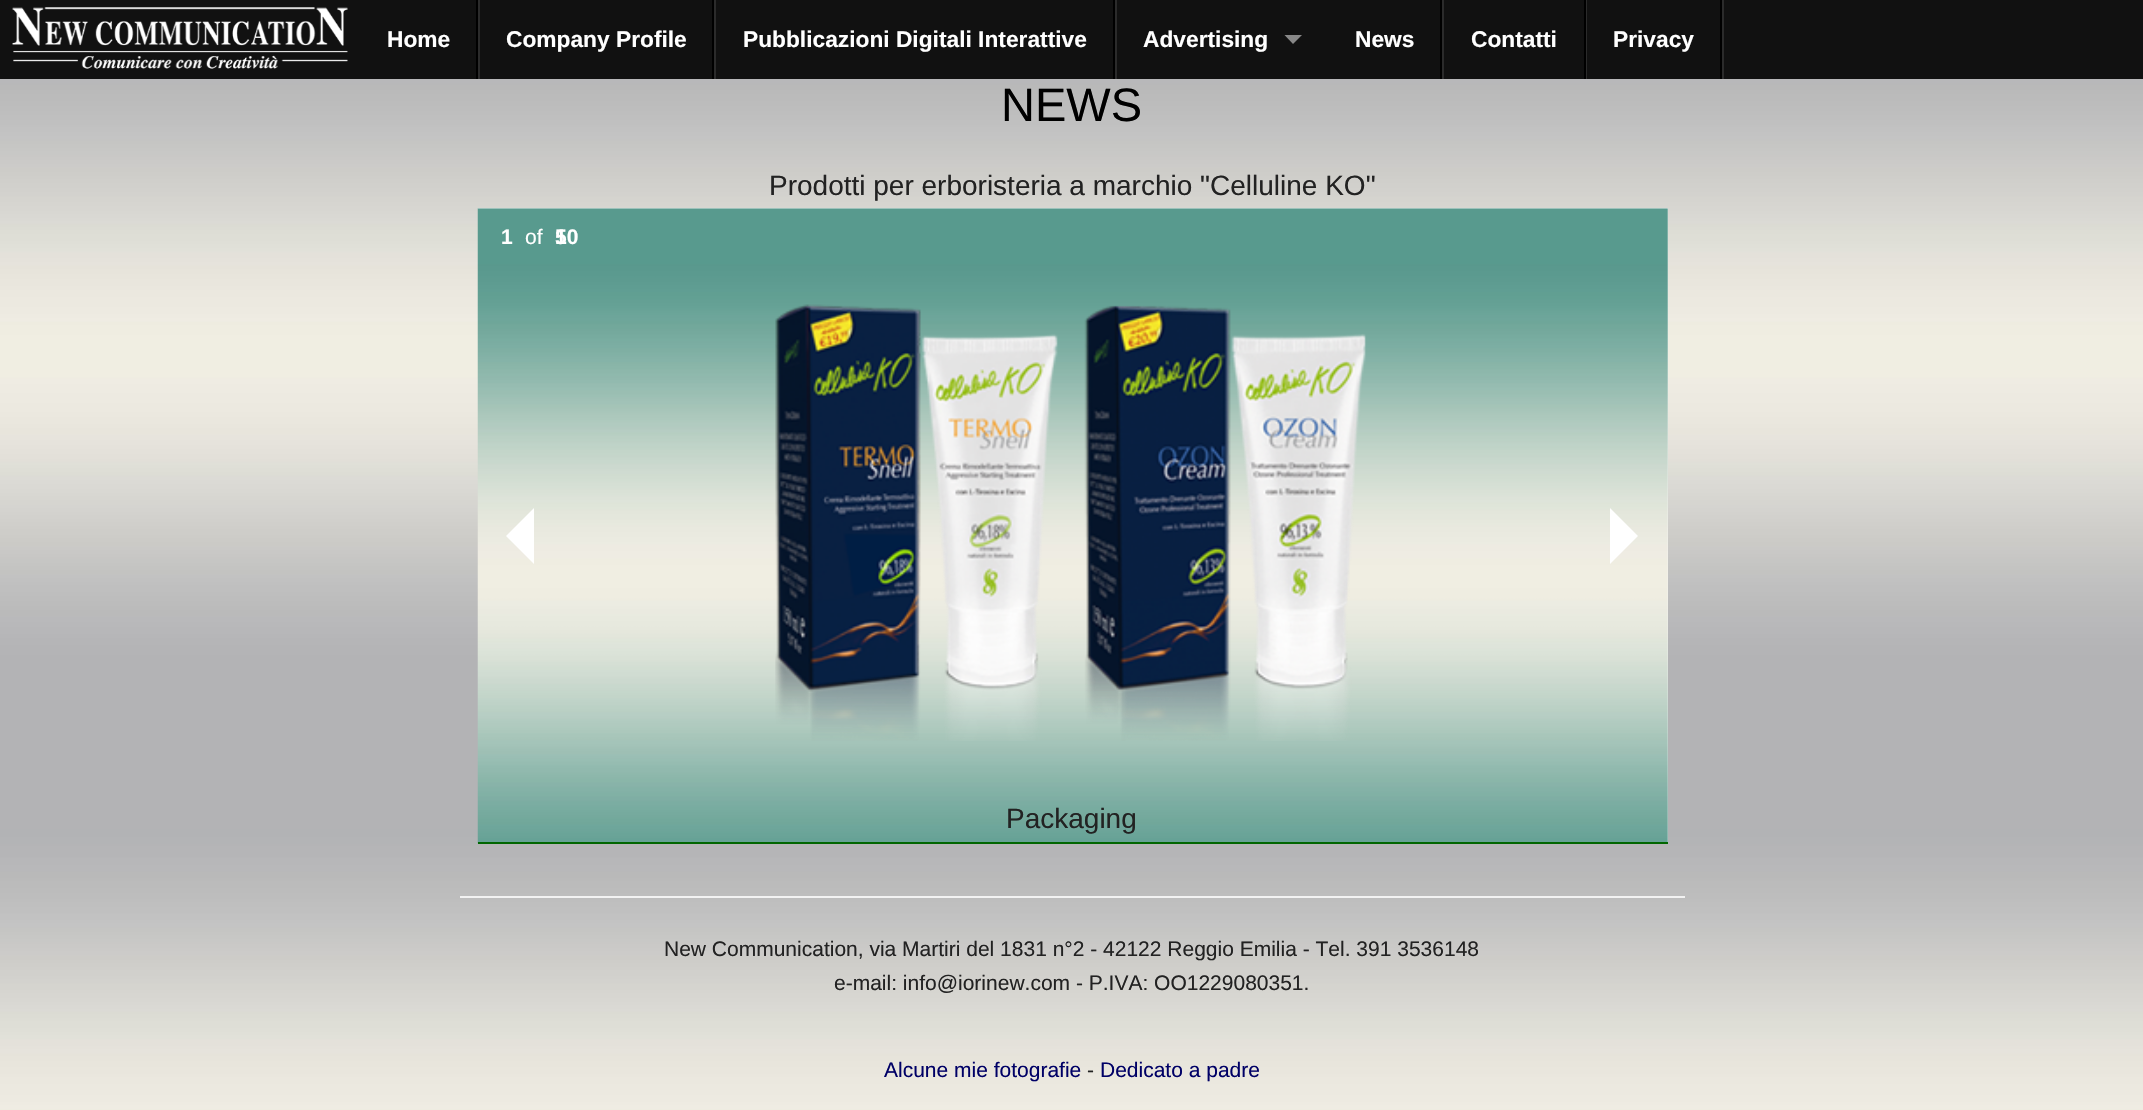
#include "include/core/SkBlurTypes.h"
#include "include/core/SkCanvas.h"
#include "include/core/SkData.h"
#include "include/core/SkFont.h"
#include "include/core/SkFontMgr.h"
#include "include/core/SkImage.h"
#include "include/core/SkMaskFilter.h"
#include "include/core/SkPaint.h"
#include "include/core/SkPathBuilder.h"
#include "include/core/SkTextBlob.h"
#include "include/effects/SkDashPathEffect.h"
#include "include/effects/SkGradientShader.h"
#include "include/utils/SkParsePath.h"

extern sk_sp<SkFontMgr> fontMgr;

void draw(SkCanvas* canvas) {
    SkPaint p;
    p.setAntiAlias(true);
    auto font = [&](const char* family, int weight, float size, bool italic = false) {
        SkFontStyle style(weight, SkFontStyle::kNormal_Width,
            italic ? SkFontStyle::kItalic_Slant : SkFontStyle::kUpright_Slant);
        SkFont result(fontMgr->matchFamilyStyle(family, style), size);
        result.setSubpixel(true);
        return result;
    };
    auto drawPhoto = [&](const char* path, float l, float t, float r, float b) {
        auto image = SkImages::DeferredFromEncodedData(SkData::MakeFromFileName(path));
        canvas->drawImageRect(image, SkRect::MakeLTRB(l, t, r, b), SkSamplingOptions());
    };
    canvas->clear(0xFFFFFFFF);
    drawPhoto("media/1.png", 0, 79, 2143, 1110);
    p.setColor(0xFF111111);
    canvas->drawRect(SkRect::MakeLTRB(0, 0, 2143, 79), p);
    drawPhoto("media/2.png", 12, 7, 348, 69);
    auto font1 = font("Liberation Sans", 700, 22.75f);
    p.setColor(0xFFFFFFFF);
    canvas->drawString("Home", 387, 47, font1, p);
    p.setColor(0xFF2B2B2B);
    canvas->drawRect(SkRect::MakeLTRB(478, 0, 480, 79), p);
    p.setColor(0xFF000000);
    canvas->drawRect(SkRect::MakeLTRB(476, 0, 478, 79), p);
    p.setColor(0xFFFFFFFF);
    canvas->drawString("Company Profile", 506, 47, font1, p);
    p.setColor(0xFF2B2B2B);
    canvas->drawRect(SkRect::MakeLTRB(714, 0, 716, 79), p);
    p.setColor(0xFF000000);
    canvas->drawRect(SkRect::MakeLTRB(712, 0, 714, 79), p);
    p.setColor(0xFFFFFFFF);
    canvas->drawString("Pubblicazioni Digitali Interattive", 743, 47, font1, p);
    p.setColor(0xFF2B2B2B);
    canvas->drawRect(SkRect::MakeLTRB(1115, 0, 1117, 79), p);
    p.setColor(0xFF000000);
    canvas->drawRect(SkRect::MakeLTRB(1113, 0, 1115, 79), p);
    p.setColor(0xFFFFFFFF);
    canvas->drawString("Advertising", 1143, 47, font1, p);
    p.setColor(0xFF888888);
    canvas->drawPath(SkPathBuilder().moveTo(1284.5f, 35).lineTo(1302, 35).lineTo(1293, 44).close().detach(), p);
    p.setColor(0xFFFFFFFF);
    canvas->drawString("News", 1355, 47, font1, p);
    p.setColor(0xFF2B2B2B);
    canvas->drawRect(SkRect::MakeLTRB(1442, 0, 1444, 79), p);
    p.setColor(0xFF000000);
    canvas->drawRect(SkRect::MakeLTRB(1440, 0, 1442, 79), p);
    p.setColor(0xFFFFFFFF);
    canvas->drawString("Contatti", 1471, 47, font1, p);
    p.setColor(0xFF2B2B2B);
    canvas->drawRect(SkRect::MakeLTRB(1586, 0, 1587, 79), p);
    p.setColor(0xFF000000);
    canvas->drawRect(SkRect::MakeLTRB(1584, 0, 1586, 79), p);
    p.setColor(0xFFFFFFFF);
    canvas->drawString("Privacy", 1613, 47, font1, p);
    p.setColor(0xFF2B2B2B);
    canvas->drawRect(SkRect::MakeLTRB(1722, 0, 1724, 79), p);
    p.setColor(0xFF000000);
    canvas->drawRect(SkRect::MakeLTRB(1720, 0, 1722, 79), p);
    auto font2 = font("Liberation Sans", 400, 47);
    canvas->drawString("NEWS", 1001, 121, font2, p);
    auto font3 = font("Liberation Sans", 400, 28);
    p.setColor(0xFF222222);
    canvas->drawString("Prodotti per erboristeria a marchio \"Celluline KO\"", 769, 195, font3, p);
    p.setColor(0xFFF2F2F2);
    canvas->drawRect(SkRect::MakeLTRB(460, 896, 1685, 898), p);
    p.setColor(0xFFF5F5F5);
    canvas->drawRect(SkRect::MakeLTRB(478, 208, 1668, 842), p);
    drawPhoto("media/3.png", 477, 208, 1668, 844);
    auto font4 = font("Liberation Sans", 700, 21);
    p.setColor(0xFFFFFFFF);
    canvas->drawString("1", 501, 244, font4, p);
    auto font5 = font("Liberation Sans", 400, 21);
    canvas->drawString("of", 525, 244, font5, p);
    canvas->drawString("5", 555, 244, font4, p);
    canvas->drawPath(SkPathBuilder().moveTo(534, 508).lineTo(534, 564).lineTo(506, 536).close().detach(), p);
    canvas->drawPath(SkPathBuilder().moveTo(1610, 564).lineTo(1610, 508).lineTo(1638, 536).close().detach(), p);
    p.setColor(0xFF006600);
    canvas->drawRect(SkRect::MakeLTRB(478, 842, 1668, 844), p);
    drawPhoto("media/4.png", 775, 304, 1366, 741);
    p.setColor(0xFF222222);
    canvas->drawString("Packaging", 1006, 828, font3, p);
    p.setColor(0xFFFFFFFF);
    canvas->drawString("10", 555, 244, font4, p);
    p.setColor(0xFF222222);
    canvas->drawString("New Communication, via Martiri del 1831 n°2 - 42122 Reggio Emilia - Tel. 391 3536148", 664, 956, font5, p);
    canvas->drawString("e-mail: info@iorinew.com - P.IVA: OO1229080351.", 834, 990, font5, p);
    p.setColor(0xFF000066);
    canvas->drawString("Alcune mie fotografie", 884, 1077, font5, p);
    p.setColor(0xFF222222);
    canvas->drawString("-", 1087, 1077, font5, p);
    p.setColor(0xFF000066);
    canvas->drawString("Dedicato a padre", 1100, 1077, font5, p);
}
